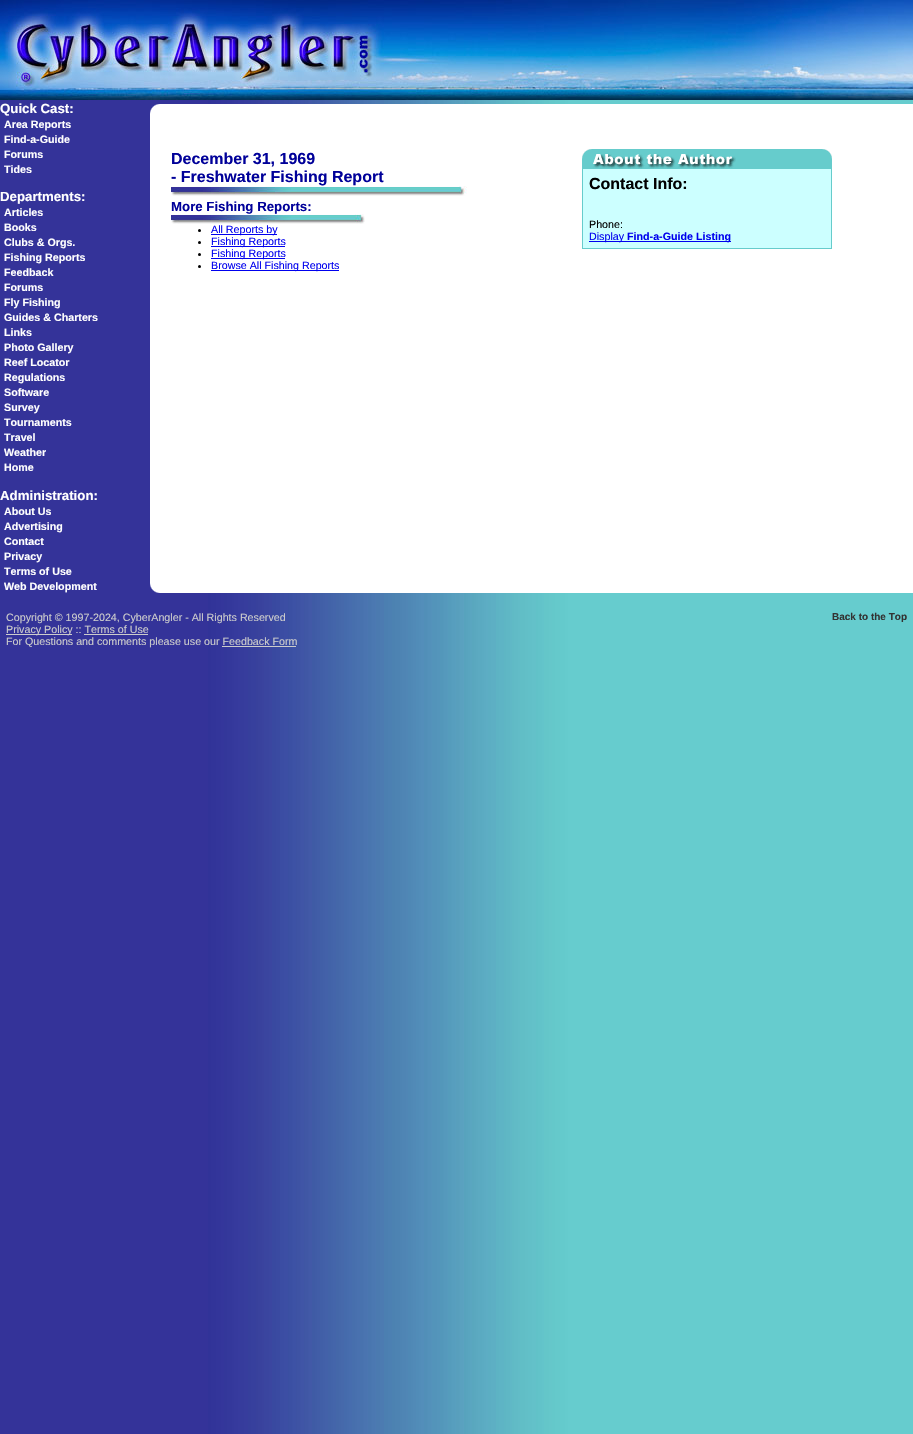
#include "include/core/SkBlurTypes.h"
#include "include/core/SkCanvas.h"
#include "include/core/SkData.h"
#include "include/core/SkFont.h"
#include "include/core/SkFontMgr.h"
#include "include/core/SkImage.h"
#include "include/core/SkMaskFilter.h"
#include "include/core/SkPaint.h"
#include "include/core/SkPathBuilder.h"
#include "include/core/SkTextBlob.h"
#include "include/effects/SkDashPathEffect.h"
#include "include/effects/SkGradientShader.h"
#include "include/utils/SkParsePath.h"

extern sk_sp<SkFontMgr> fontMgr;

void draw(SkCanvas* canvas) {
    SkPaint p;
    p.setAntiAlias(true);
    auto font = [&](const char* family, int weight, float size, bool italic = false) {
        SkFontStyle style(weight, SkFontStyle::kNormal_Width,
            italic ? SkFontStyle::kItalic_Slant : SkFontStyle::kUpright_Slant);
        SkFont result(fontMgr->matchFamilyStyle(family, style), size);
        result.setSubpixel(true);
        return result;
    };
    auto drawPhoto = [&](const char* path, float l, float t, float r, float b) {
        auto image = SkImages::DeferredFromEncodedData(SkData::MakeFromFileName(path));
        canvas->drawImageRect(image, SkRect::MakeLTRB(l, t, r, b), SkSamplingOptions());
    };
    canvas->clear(0xFFFFFFFF);
    drawPhoto("media/1.png", 0, 100, 913, 1434);
    drawPhoto("media/2.png", 0, 0, 400, 100);
    drawPhoto("media/3.png", 400, 0, 913, 100);
    auto font1 = font("Liberation Sans", 700, 13.25f);
    p.setColor(0xFFFFFFFF);
    canvas->drawString("Quick Cast:", 0, 113, font1, p);
    auto font2 = font("Liberation Sans", 700, 10.7f);
    {
        const struct { const char* s; float x, y; } items[] = {
            {"Area Reports", 4, 128},
            {"Find-a-Guide", 4, 143},
            {"Forums", 4, 158},
            {"Tides", 4, 173},
        };
        for (auto [s, x, y] : items) {
            canvas->drawString(s, x, y, font2, p);
        }
    }
    canvas->drawString("Departments:", 0, 201, font1, p);
    {
        const struct { const char* s; float x, y; } items[] = {
            {"Articles", 4, 216},
            {"Books", 4, 231},
            {"Clubs & Orgs.", 4, 246},
            {"Fishing Reports", 4, 261},
            {"Feedback", 4, 276},
            {"Forums", 4, 291},
            {"Fly Fishing", 4, 306},
            {"Guides & Charters", 4, 321},
            {"Links", 4, 336},
            {"Photo Gallery", 4, 351},
            {"Reef Locator", 4, 366},
            {"Regulations", 4, 381},
            {"Software", 4, 396},
            {"Survey", 4, 411},
            {"Tournaments", 4, 426},
            {"Travel", 4, 441},
            {"Weather", 4, 456},
            {"Home", 4, 471},
        };
        for (auto [s, x, y] : items) {
            canvas->drawString(s, x, y, font2, p);
        }
    }
    canvas->drawString("Administration:", 0, 500, font1, p);
    {
        const struct { const char* s; float x, y; } items[] = {
            {"About Us", 4, 515},
            {"Advertising", 4, 530},
            {"Contact", 4, 545},
            {"Privacy", 4, 560},
            {"Terms of Use", 4, 575},
            {"Web Development", 4, 590},
        };
        for (auto [s, x, y] : items) {
            canvas->drawString(s, x, y, font2, p);
        }
    }
    canvas->drawRect(SkRect::MakeLTRB(150, 104, 163, 583), p);
    drawPhoto("media/4.png", 150, 104, 160, 114);
    canvas->drawRect(SkRect::MakeLTRB(163, 104, 913, 593), p);
    auto font3 = font("Liberation Sans", 700, 16);
    p.setColor(0xFF000099);
    canvas->drawString("December 31, 1969", 171, 164, font3, p);
    canvas->drawString("- Freshwater Fishing Report", 171, 182, font3, p);
    drawPhoto("media/5.png", 171, 186, 467, 196);
    canvas->drawString("More Fishing Reports:", 171, 211, font1, p);
    drawPhoto("media/6.png", 171, 214, 365, 224);
    p.setColor(0xFF000000);
    canvas->drawCircle(199.5f, 230.5f, 1.5f, p);
    p.setColor(0xFF0000EE);
    canvas->drawRect(SkRect::MakeLTRB(211, 234, 277, 235), p);
    auto font4 = font("Liberation Sans", 400, 10.7f);
    canvas->drawString("All Reports by", 211, 233, font4, p);
    p.setColor(0xFF000000);
    canvas->drawCircle(199.5f, 242.5f, 1.5f, p);
    p.setColor(0xFF0000EE);
    canvas->drawRect(SkRect::MakeLTRB(211, 246, 285, 247), p);
    canvas->drawString("Fishing Reports", 211, 245, font4, p);
    p.setColor(0xFF000000);
    canvas->drawCircle(199.5f, 254.5f, 1.5f, p);
    p.setColor(0xFF0000EE);
    canvas->drawRect(SkRect::MakeLTRB(211, 258, 285, 259), p);
    canvas->drawString("Fishing Reports", 211, 257, font4, p);
    p.setColor(0xFF000000);
    canvas->drawCircle(199.5f, 266.5f, 1.5f, p);
    p.setColor(0xFF0000EE);
    canvas->drawRect(SkRect::MakeLTRB(211, 270, 339, 271), p);
    canvas->drawString("Browse All Fishing Reports", 211, 269, font4, p);
    drawPhoto("media/7.png", 582, 149, 832, 169);
    p.setColor(0xFF66CCCC);
    canvas->drawRect(SkRect::MakeLTRB(582, 169, 583, 248), p);
    p.setColor(0xFFCCFFFF);
    canvas->drawRect(SkRect::MakeLTRB(583, 169, 831, 248), p);
    p.setColor(0xFF000000);
    canvas->drawString("Contact Info:", 589, 189, font3, p);
    canvas->drawString("Phone:", 589, 228, font4, p);
    p.setColor(0xFF0000EE);
    canvas->drawRect(SkRect::MakeLTRB(589, 241, 731, 242), p);
    canvas->drawString("Display", 589, 240, font4, p);
    canvas->drawString("Find-a-Guide Listing", 627, 240, font2, p);
    {
        const struct { float l, t, r, b; SkColor color; } items[] = {
            {831, 169, 832, 248, 0xFF66CCCC},
            {582, 248, 832, 249, 0xFF66CCCC},
            {160, 583, 163, 593, 0xFFFFFFFF},
        };
        for (auto [l, t, r, b, color] : items) {
            p.setColor(color);
            canvas->drawRect(SkRect::MakeLTRB(l, t, r, b), p);
        }
    }
    drawPhoto("media/8.png", 150, 583, 160, 593);
    p.setColor(0xFFCCCCCC);
    canvas->drawString("Copyright © 1997-2024, CyberAngler - All Rights Reserved", 6, 621, font4, p);
    canvas->drawRect(SkRect::MakeLTRB(6, 634, 72, 635), p);
    canvas->drawString("Privacy Policy :: Terms of Use", 6, 633, font4, p);
    canvas->drawRect(SkRect::MakeLTRB(84, 634, 148, 635), p);
    canvas->drawString("For Questions and comments please use our Feedback Form", 6, 645, font4, p);
    canvas->drawRect(SkRect::MakeLTRB(222, 646, 296, 647), p);
    auto font5 = font("Liberation Sans", 700, 10);
    p.setColor(0xFF333333);
    canvas->drawString("Back to the Top", 832, 620, font5, p);
}
